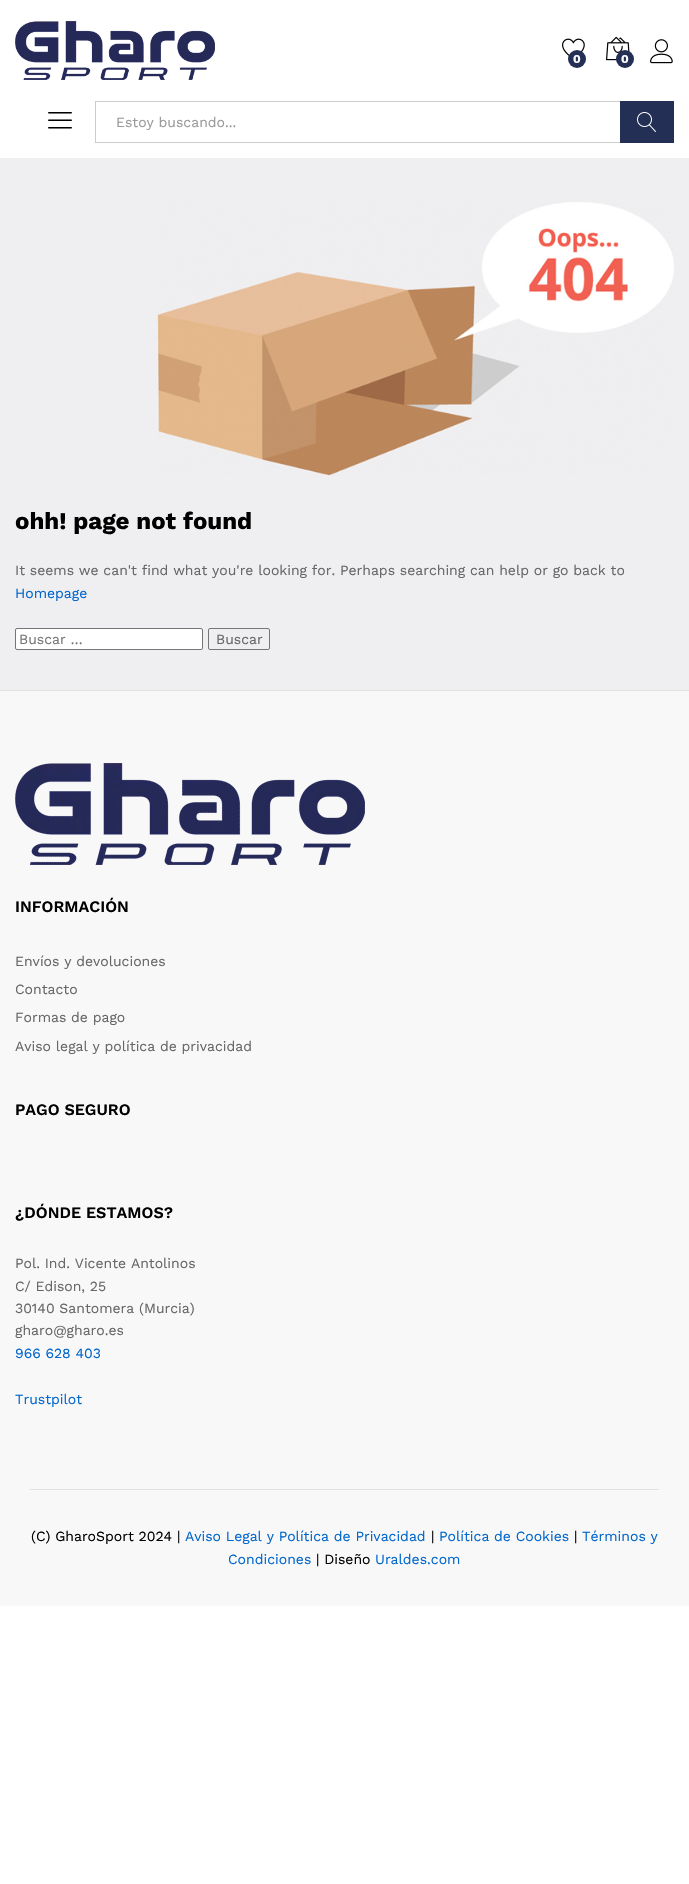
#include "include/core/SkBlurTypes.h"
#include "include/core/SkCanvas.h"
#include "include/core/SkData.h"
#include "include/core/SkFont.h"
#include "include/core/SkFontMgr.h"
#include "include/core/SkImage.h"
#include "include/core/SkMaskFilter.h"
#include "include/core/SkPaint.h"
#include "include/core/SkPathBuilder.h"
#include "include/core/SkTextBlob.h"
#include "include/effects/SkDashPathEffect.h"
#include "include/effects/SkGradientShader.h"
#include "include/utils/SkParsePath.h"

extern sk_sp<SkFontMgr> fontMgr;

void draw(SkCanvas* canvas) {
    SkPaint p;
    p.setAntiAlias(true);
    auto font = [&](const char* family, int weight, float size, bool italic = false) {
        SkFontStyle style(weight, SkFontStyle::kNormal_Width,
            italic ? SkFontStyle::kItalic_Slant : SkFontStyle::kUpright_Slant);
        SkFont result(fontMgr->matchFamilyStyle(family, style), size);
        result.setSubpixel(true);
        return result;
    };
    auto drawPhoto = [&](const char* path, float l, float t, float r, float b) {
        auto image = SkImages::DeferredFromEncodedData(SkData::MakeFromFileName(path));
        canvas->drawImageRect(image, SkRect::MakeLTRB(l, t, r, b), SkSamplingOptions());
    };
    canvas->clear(0xFFFFFFFF);
    drawPhoto("media/1.png", 15, 21, 215, 80);
    drawPhoto("media/2.png", 562, 38, 585, 56);
    p.setColor(0xFF242F56);
    canvas->drawCircle(577, 59, 9, p);
    auto font1 = font("Work Sans", 700, 12);
    p.setColor(0xFFFFFFFF);
    canvas->drawString("0", 573, 63, font1, p);
    drawPhoto("media/3.png", 606, 36, 630, 61);
    p.setColor(0xFF242F56);
    canvas->drawCircle(625, 59, 9, p);
    p.setColor(0xFFFFFFFF);
    canvas->drawString("0", 621, 63, font1, p);
    drawPhoto("media/4.png", 650, 39, 673, 64);
    drawPhoto("media/5.png", 48, 112, 72, 129);
    {
        const struct { float l, t, r, b; SkColor color; } items[] = {
            {95, 101, 620, 102, 0xFFCCCCCC},
            {95, 142, 620, 143, 0xFFCCCCCC},
            {95, 101, 96, 143, 0xFFCCCCCC},
        };
        for (auto [l, t, r, b, color] : items) {
            p.setColor(color);
            canvas->drawRect(SkRect::MakeLTRB(l, t, r, b), p);
        }
    }
    auto font2 = font("Work Sans", 400, 14);
    p.setColor(0xFF999999);
    canvas->drawString("Estoy buscando...", 116, 127, font2, p);
    p.setColor(0xFF242F56);
    canvas->drawRect(SkRect::MakeLTRB(620, 101, 674, 143), p);
    drawPhoto("media/6.png", 637, 112, 656, 132);
    p.setColor(0xFFEFEEF0);
    canvas->drawRect(SkRect::MakeLTRB(0, 158, 689, 690), p);
    drawPhoto("media/7.png", 157, 202, 674, 477);
    auto font3 = font("Work Sans", 700, 24);
    p.setColor(0xFF000000);
    canvas->drawString("ohh! page not found", 15, 529, font3, p);
    p.setColor(0xFF666666);
    canvas->drawString("It seems we can't find what you're looking for. Perhaps searching can help or go back to", 15, 575, font2, p);
    p.setColor(0xFF0066CC);
    canvas->drawString("Homepage", 15, 598, font2, p);
    p.setColor(0xFFFFFFFF);
    canvas->drawRoundRect(SkRect::MakeLTRB(15.5f, 628.5f, 202.5f, 649.5f), 1.5f, 1.5f, p);
    p.setStyle(SkPaint::kStroke_Style);
    p.setStrokeWidth(1);
    p.setColor(0xFF767676);
    canvas->drawRoundRect(SkRect::MakeLTRB(15.5f, 628.5f, 202.5f, 649.5f), 1.5f, 1.5f, p);
    p.setStyle(SkPaint::kFill_Style);
    p.setColor(0xFF757575);
    canvas->drawString("Buscar …", 19, 644, font2, p);
    p.setStyle(SkPaint::kStroke_Style);
    p.setColor(0xFF767676);
    canvas->drawRoundRect(SkRect::MakeLTRB(208.5f, 628.5f, 269.5f, 649.5f), 1.5f, 1.5f, p);
    p.setStyle(SkPaint::kFill_Style);
    p.setColor(0xFF666666);
    canvas->drawString("Buscar", 216, 644, font2, p);
    p.setColor(0xFFE1E1E1);
    canvas->drawRect(SkRect::MakeLTRB(0, 690, 689, 691), p);
    p.setColor(0xFFF8F8F8);
    canvas->drawRect(SkRect::MakeLTRB(0, 691, 689, 1606), p);
    drawPhoto("media/8.png", 15, 763, 365, 866);
    auto font4 = font("Work Sans", 600, 16);
    p.setColor(0xFF000000);
    canvas->drawString("INFORMACIÓN", 15, 912, font4, p);
    p.setColor(0xFF666666);
    {
        const struct { const char* s; float x, y; } items[] = {
            {"Envíos y devoluciones", 15, 966},
            {"Contacto", 15, 994},
            {"Formas de pago", 15, 1022},
            {"Aviso legal y política de privacidad", 15, 1051},
        };
        for (auto [s, x, y] : items) {
            canvas->drawString(s, x, y, font2, p);
        }
    }
    p.setColor(0xFF000000);
    canvas->drawString("PAGO SEGURO", 15, 1115, font4, p);
    canvas->drawString("¿DÓNDE ESTAMOS?", 15, 1218, font4, p);
    p.setColor(0xFF666666);
    {
        const struct { const char* s; float x, y; } items[] = {
            {"Pol. Ind. Vicente Antolinos", 15, 1268},
            {"C/ Edison, 25", 15, 1291},
            {"30140 Santomera (Murcia)", 15, 1313},
            {"gharo@gharo.es", 15, 1335},
        };
        for (auto [s, x, y] : items) {
            canvas->drawString(s, x, y, font2, p);
        }
    }
    p.setColor(0xFF0066CC);
    canvas->drawString("966 628 403", 15, 1358, font2, p);
    canvas->drawString("Trustpilot", 15, 1404, font2, p);
    p.setColor(0xFFE1E1E1);
    canvas->drawRect(SkRect::MakeLTRB(30, 1489, 659, 1490), p);
    p.setColor(0xFF000000);
    canvas->drawString("(C) GharoSport 2024 |", 31, 1541, font2, p);
    p.setColor(0xFF0066CC);
    canvas->drawString("Aviso Legal y Política de Privacidad", 185, 1541, font2, p);
    p.setColor(0xFF000000);
    canvas->drawString("|", 431, 1541, font2, p);
    p.setColor(0xFF0066CC);
    canvas->drawString("Política de Cookies", 439, 1541, font2, p);
    p.setColor(0xFF000000);
    canvas->drawString("|", 574, 1541, font2, p);
    p.setColor(0xFF0066CC);
    canvas->drawString("Términos y", 582, 1541, font2, p);
    canvas->drawString("Condiciones", 228, 1564, font2, p);
    p.setColor(0xFF000000);
    canvas->drawString("| Diseño", 316, 1564, font2, p);
    p.setColor(0xFF0066CC);
    canvas->drawString("Uraldes.com", 375, 1564, font2, p);
}
